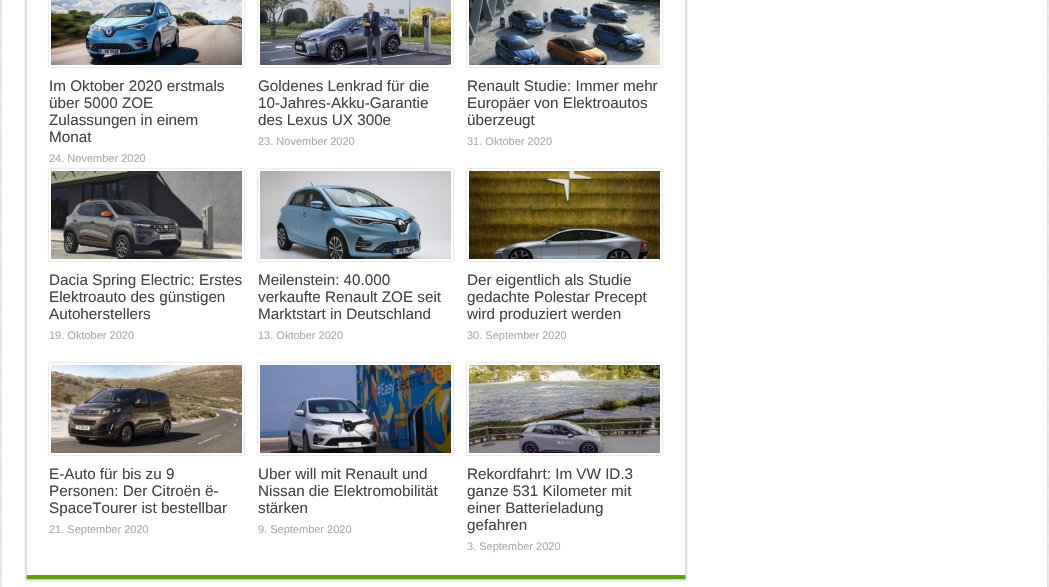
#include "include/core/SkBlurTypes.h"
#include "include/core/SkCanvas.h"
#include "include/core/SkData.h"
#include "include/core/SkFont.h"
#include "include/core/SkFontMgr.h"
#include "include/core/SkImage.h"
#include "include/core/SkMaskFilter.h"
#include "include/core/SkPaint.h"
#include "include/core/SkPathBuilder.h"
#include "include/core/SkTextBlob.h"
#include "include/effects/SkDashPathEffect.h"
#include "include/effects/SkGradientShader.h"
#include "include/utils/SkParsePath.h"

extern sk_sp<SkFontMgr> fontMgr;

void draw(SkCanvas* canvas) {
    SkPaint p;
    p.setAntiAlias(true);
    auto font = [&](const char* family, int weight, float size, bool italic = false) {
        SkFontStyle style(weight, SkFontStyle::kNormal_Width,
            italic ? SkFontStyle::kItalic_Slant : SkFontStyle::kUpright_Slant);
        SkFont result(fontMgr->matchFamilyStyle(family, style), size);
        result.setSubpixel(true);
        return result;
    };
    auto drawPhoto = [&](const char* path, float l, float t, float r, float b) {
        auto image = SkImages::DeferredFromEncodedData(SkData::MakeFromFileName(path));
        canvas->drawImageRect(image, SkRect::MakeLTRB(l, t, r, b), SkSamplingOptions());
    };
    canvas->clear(0xFFFFFFFF);
    drawPhoto("media/1.png", 0, 0, 1049, 587);
    p.setColor(0xFFCACACA);
    p.setMaskFilter(SkMaskFilter::MakeBlur(kNormal_SkBlurStyle, 2.5f));
    canvas->drawRect(SkRect::MakeLTRB(2, -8, 1047, 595), p);
    p.setMaskFilter(nullptr);
    p.setColor(0xFFFFFFFF);
    canvas->drawRect(SkRect::MakeLTRB(2, 0, 1047, 587), p);
    canvas->save();
    canvas->clipPath(SkPathBuilder(SkPathFillType::kEvenOdd).moveTo(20, 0).lineTo(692, 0).lineTo(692, 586).lineTo(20, 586).close().moveTo(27, -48).lineTo(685, -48).cubicTo(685.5f, -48, 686, -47.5f, 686, -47).lineTo(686, 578).cubicTo(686, 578.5f, 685.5f, 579, 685, 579).lineTo(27, 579).cubicTo(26.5f, 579, 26, 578.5f, 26, 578).lineTo(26, -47).cubicTo(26, -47.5f, 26.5f, -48, 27, -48).close().detach(), true);
    p.setColor(0xFFB5B5B5);
    p.setMaskFilter(SkMaskFilter::MakeBlur(kNormal_SkBlurStyle, 1.5f));
    canvas->drawRoundRect(SkRect::MakeLTRB(26, -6, 686, 580), 1, 1, p);
    p.setMaskFilter(nullptr);
    canvas->restore();
    p.setColor(0xFFDDDDDD);
    canvas->drawPath(SkPathBuilder().moveTo(686, 578).lineTo(685, 575).lineTo(685, -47).lineTo(686, -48).lineTo(686, -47).close().detach(), p);
    p.setColor(0xFF61A00A);
    canvas->drawPath(SkPathBuilder().moveTo(27, 579).lineTo(685, 579).lineTo(686, 578).lineTo(685, 575).lineTo(27, 575).lineTo(26, 578).close().detach(), p);
    p.setColor(0xFFDDDDDD);
    canvas->drawPath(SkPathBuilder().moveTo(27, -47).lineTo(26, -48).lineTo(26, -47).lineTo(26, 578).lineTo(27, 575).close().detach(), p);
    p.setColor(0xFFB5B5B5);
    p.setMaskFilter(SkMaskFilter::MakeBlur(kNormal_SkBlurStyle, 1));
    canvas->drawRoundRect(SkRect::MakeLTRB(49, -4, 244, 67), 1, 1, p);
    p.setMaskFilter(nullptr);
    p.setColor(0xFFFFFFFF);
    canvas->drawRoundRect(SkRect::MakeLTRB(49, -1, 244, 67), 1, 1, p);
    drawPhoto("media/2.png", 51, 0, 242, 65);
    auto font1 = font("Liberation Sans", 400, 15.25f);
    p.setColor(0xFF444444);
    {
        const struct { const char* s; float x, y; } items[] = {
            {"Im Oktober 2020 erstmals", 49, 91},
            {"über 5000 ZOE", 49, 108},
            {"Zulassungen in einem", 49, 125},
            {"Monat", 49, 142},
        };
        for (auto [s, x, y] : items) {
            canvas->drawString(s, x, y, font1, p);
        }
    }
    auto font2 = font("Liberation Sans", 400, 11);
    p.setColor(0xFFAAAAAA);
    canvas->drawString("24. November 2020", 49, 162, font2, p);
    p.setColor(0xFFB5B5B5);
    p.setMaskFilter(SkMaskFilter::MakeBlur(kNormal_SkBlurStyle, 1));
    canvas->drawRoundRect(SkRect::MakeLTRB(258, -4, 453, 67), 1, 1, p);
    p.setMaskFilter(nullptr);
    p.setColor(0xFFFFFFFF);
    canvas->drawRoundRect(SkRect::MakeLTRB(258, -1, 453, 67), 1, 1, p);
    drawPhoto("media/3.png", 260, 0, 451, 65);
    p.setColor(0xFF444444);
    {
        const struct { const char* s; float x, y; } items[] = {
            {"Goldenes Lenkrad für die", 258, 91},
            {"10-Jahres-Akku-Garantie", 258, 108},
            {"des Lexus UX 300e", 258, 125},
        };
        for (auto [s, x, y] : items) {
            canvas->drawString(s, x, y, font1, p);
        }
    }
    p.setColor(0xFFAAAAAA);
    canvas->drawString("23. November 2020", 258, 145, font2, p);
    p.setColor(0xFFB5B5B5);
    p.setMaskFilter(SkMaskFilter::MakeBlur(kNormal_SkBlurStyle, 1));
    canvas->drawRoundRect(SkRect::MakeLTRB(467, -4, 662, 67), 1, 1, p);
    p.setMaskFilter(nullptr);
    p.setColor(0xFFFFFFFF);
    canvas->drawRoundRect(SkRect::MakeLTRB(467, -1, 662, 67), 1, 1, p);
    drawPhoto("media/4.png", 469, 0, 660, 65);
    p.setColor(0xFF444444);
    {
        const struct { const char* s; float x, y; } items[] = {
            {"Renault Studie: Immer mehr", 467, 91},
            {"Europäer von Elektroautos", 467, 108},
            {"überzeugt", 467, 125},
        };
        for (auto [s, x, y] : items) {
            canvas->drawString(s, x, y, font1, p);
        }
    }
    p.setColor(0xFFAAAAAA);
    canvas->drawString("31. Oktober 2020", 467, 145, font2, p);
    p.setColor(0xFFB5B5B5);
    p.setMaskFilter(SkMaskFilter::MakeBlur(kNormal_SkBlurStyle, 1));
    canvas->drawRoundRect(SkRect::MakeLTRB(49, 169, 244, 261), 1, 1, p);
    p.setMaskFilter(nullptr);
    p.setColor(0xFFFFFFFF);
    canvas->drawRoundRect(SkRect::MakeLTRB(49, 169, 244, 261), 1, 1, p);
    drawPhoto("media/5.png", 51, 171, 242, 259);
    p.setColor(0xFF444444);
    {
        const struct { const char* s; float x, y; } items[] = {
            {"Dacia Spring Electric: Erstes", 49, 285},
            {"Elektroauto des günstigen", 49, 302},
            {"Autoherstellers", 49, 319},
        };
        for (auto [s, x, y] : items) {
            canvas->drawString(s, x, y, font1, p);
        }
    }
    p.setColor(0xFFAAAAAA);
    canvas->drawString("19. Oktober 2020", 49, 339, font2, p);
    p.setColor(0xFFB5B5B5);
    p.setMaskFilter(SkMaskFilter::MakeBlur(kNormal_SkBlurStyle, 1));
    canvas->drawRoundRect(SkRect::MakeLTRB(258, 169, 453, 261), 1, 1, p);
    p.setMaskFilter(nullptr);
    p.setColor(0xFFFFFFFF);
    canvas->drawRoundRect(SkRect::MakeLTRB(258, 169, 453, 261), 1, 1, p);
    drawPhoto("media/6.png", 260, 171, 451, 259);
    p.setColor(0xFF444444);
    {
        const struct { const char* s; float x, y; } items[] = {
            {"Meilenstein: 40.000", 258, 285},
            {"verkaufte Renault ZOE seit", 258, 302},
            {"Marktstart in Deutschland", 258, 319},
        };
        for (auto [s, x, y] : items) {
            canvas->drawString(s, x, y, font1, p);
        }
    }
    p.setColor(0xFFAAAAAA);
    canvas->drawString("13. Oktober 2020", 258, 339, font2, p);
    p.setColor(0xFFB5B5B5);
    p.setMaskFilter(SkMaskFilter::MakeBlur(kNormal_SkBlurStyle, 1));
    canvas->drawRoundRect(SkRect::MakeLTRB(467, 169, 662, 261), 1, 1, p);
    p.setMaskFilter(nullptr);
    p.setColor(0xFFFFFFFF);
    canvas->drawRoundRect(SkRect::MakeLTRB(467, 169, 662, 261), 1, 1, p);
    drawPhoto("media/7.png", 469, 171, 660, 259);
    p.setColor(0xFF444444);
    {
        const struct { const char* s; float x, y; } items[] = {
            {"Der eigentlich als Studie", 467, 285},
            {"gedachte Polestar Precept", 467, 302},
            {"wird produziert werden", 467, 319},
        };
        for (auto [s, x, y] : items) {
            canvas->drawString(s, x, y, font1, p);
        }
    }
    p.setColor(0xFFAAAAAA);
    canvas->drawString("30. September 2020", 467, 339, font2, p);
    p.setColor(0xFFB5B5B5);
    p.setMaskFilter(SkMaskFilter::MakeBlur(kNormal_SkBlurStyle, 1));
    canvas->drawRoundRect(SkRect::MakeLTRB(49, 363, 244, 455), 1, 1, p);
    p.setMaskFilter(nullptr);
    p.setColor(0xFFFFFFFF);
    canvas->drawRoundRect(SkRect::MakeLTRB(49, 363, 244, 455), 1, 1, p);
    drawPhoto("media/8.png", 51, 365, 242, 453);
    p.setColor(0xFF444444);
    {
        const struct { const char* s; float x, y; } items[] = {
            {"E-Auto für bis zu 9", 49, 479},
            {"Personen: Der Citroën ë-", 49, 496},
            {"SpaceTourer ist bestellbar", 49, 513},
        };
        for (auto [s, x, y] : items) {
            canvas->drawString(s, x, y, font1, p);
        }
    }
    p.setColor(0xFFAAAAAA);
    canvas->drawString("21. September 2020", 49, 533, font2, p);
    p.setColor(0xFFB5B5B5);
    p.setMaskFilter(SkMaskFilter::MakeBlur(kNormal_SkBlurStyle, 1));
    canvas->drawRoundRect(SkRect::MakeLTRB(258, 363, 453, 455), 1, 1, p);
    p.setMaskFilter(nullptr);
    p.setColor(0xFFFFFFFF);
    canvas->drawRoundRect(SkRect::MakeLTRB(258, 363, 453, 455), 1, 1, p);
    drawPhoto("media/9.png", 260, 365, 451, 453);
    p.setColor(0xFF444444);
    {
        const struct { const char* s; float x, y; } items[] = {
            {"Uber will mit Renault und", 258, 479},
            {"Nissan die Elektromobilität", 258, 496},
            {"stärken", 258, 513},
        };
        for (auto [s, x, y] : items) {
            canvas->drawString(s, x, y, font1, p);
        }
    }
    p.setColor(0xFFAAAAAA);
    canvas->drawString("9. September 2020", 258, 533, font2, p);
    p.setColor(0xFFB5B5B5);
    p.setMaskFilter(SkMaskFilter::MakeBlur(kNormal_SkBlurStyle, 1));
    canvas->drawRoundRect(SkRect::MakeLTRB(467, 363, 662, 455), 1, 1, p);
    p.setMaskFilter(nullptr);
    p.setColor(0xFFFFFFFF);
    canvas->drawRoundRect(SkRect::MakeLTRB(467, 363, 662, 455), 1, 1, p);
    drawPhoto("media/10.png", 469, 365, 660, 453);
    p.setColor(0xFF444444);
    {
        const struct { const char* s; float x, y; } items[] = {
            {"Rekordfahrt: Im VW ID.3", 467, 479},
            {"ganze 531 Kilometer mit", 467, 496},
            {"einer Batterieladung", 467, 513},
            {"gefahren", 467, 530},
        };
        for (auto [s, x, y] : items) {
            canvas->drawString(s, x, y, font1, p);
        }
    }
    p.setColor(0xFFAAAAAA);
    canvas->drawString("3. September 2020", 467, 550, font2, p);
}
